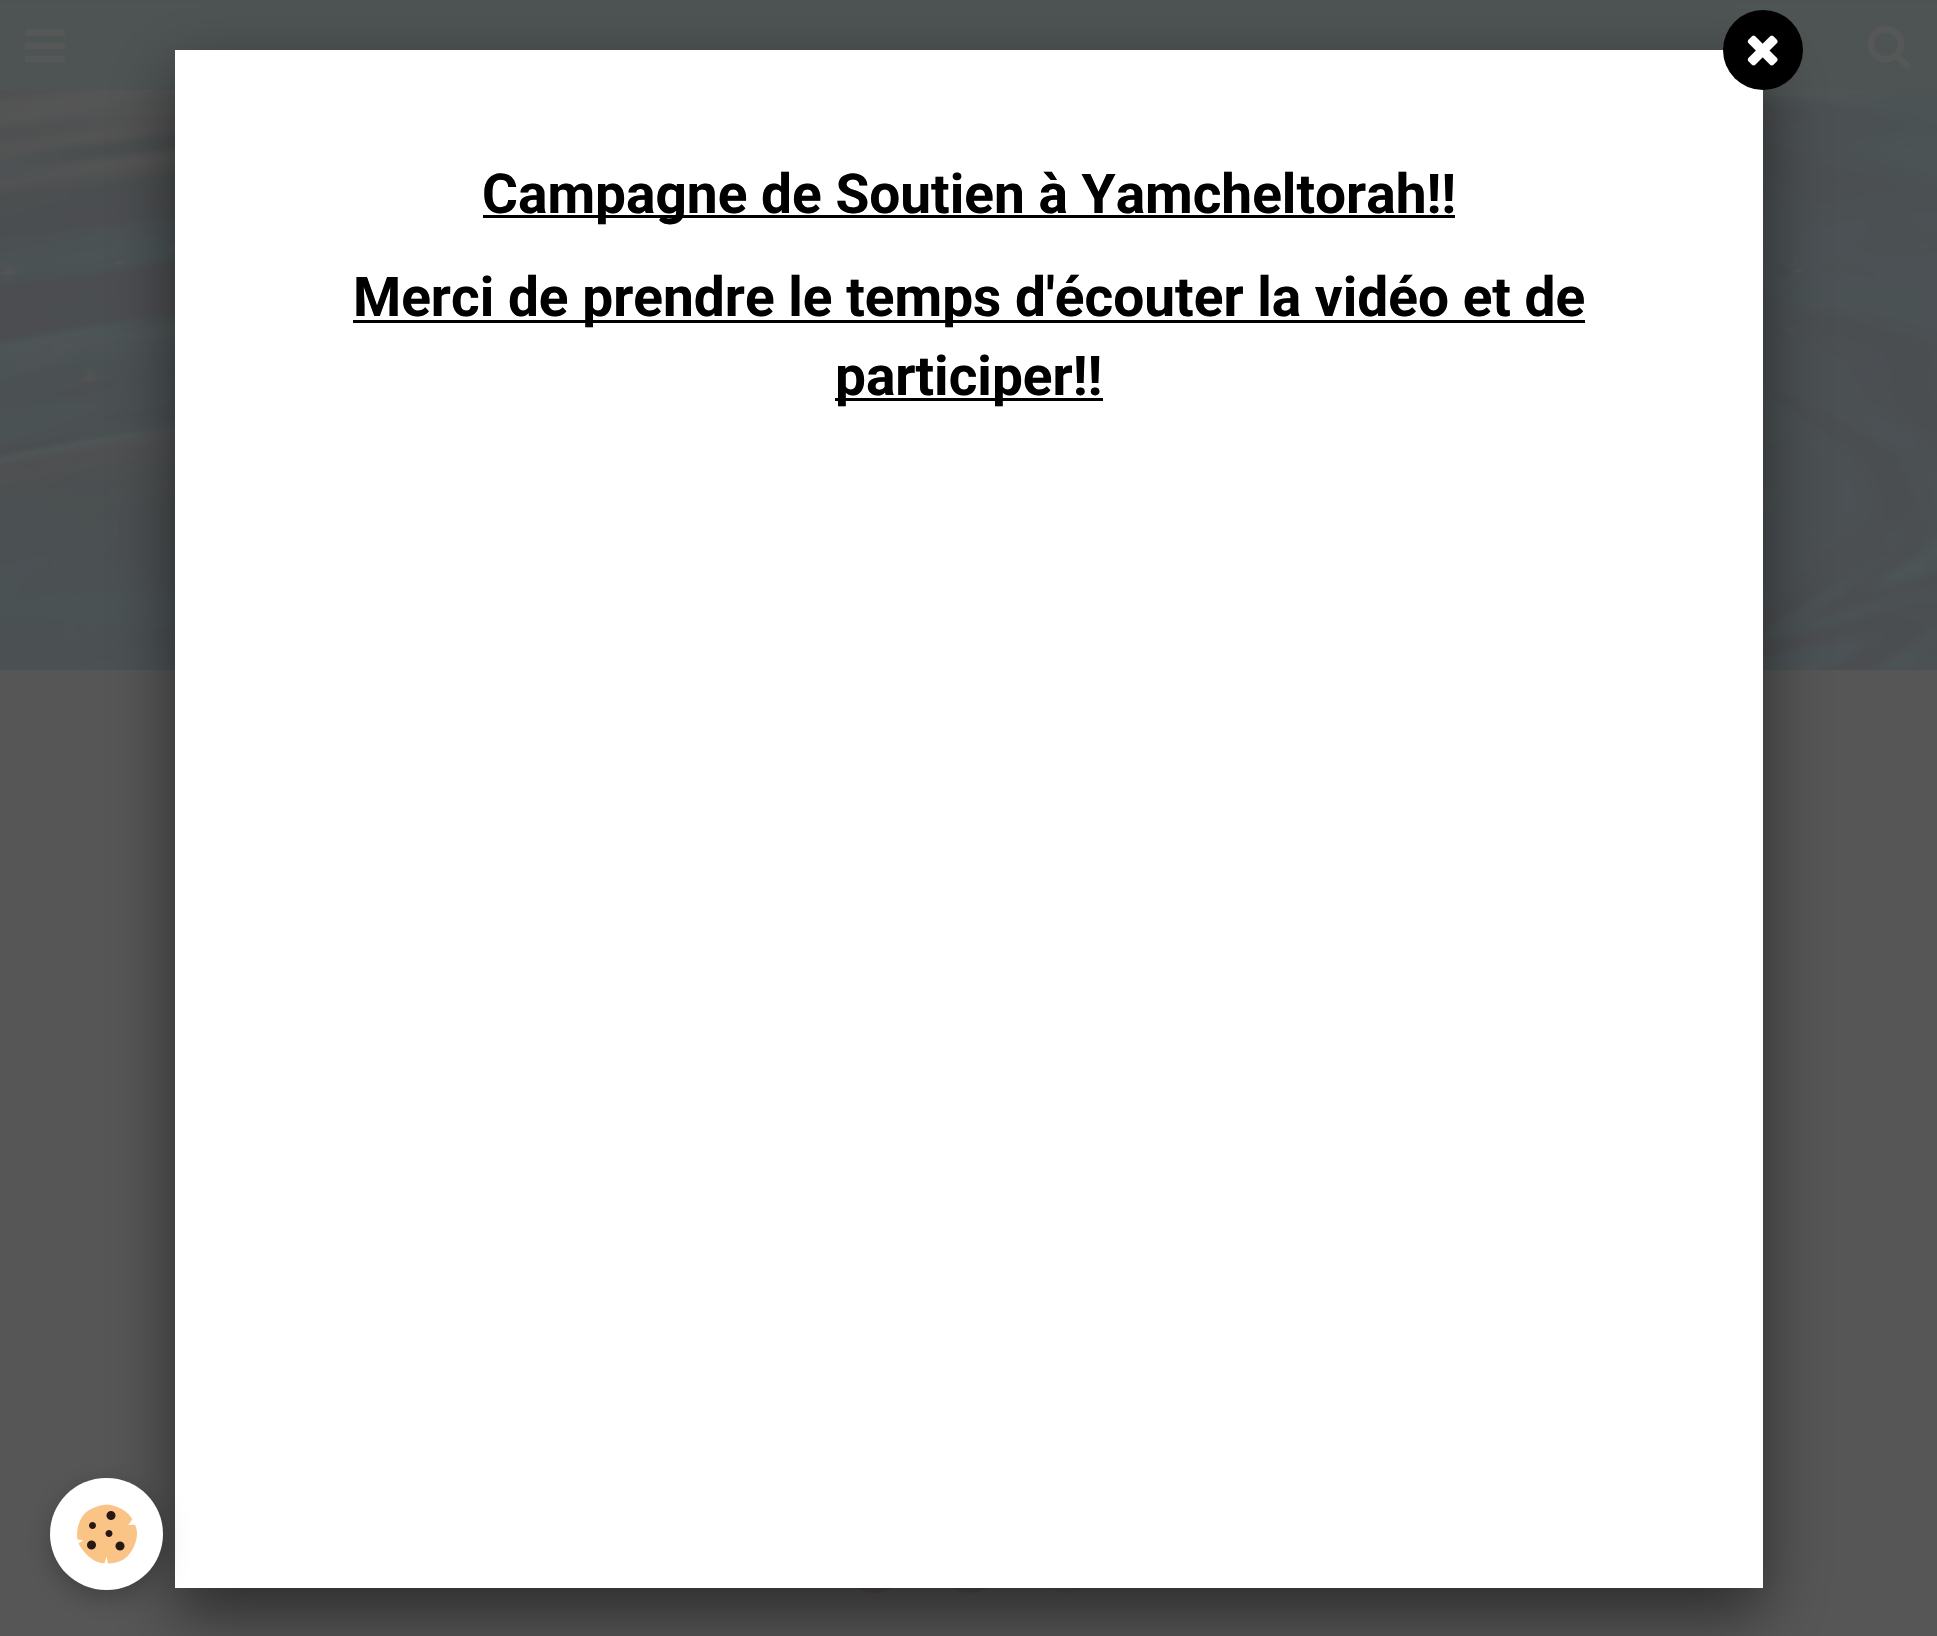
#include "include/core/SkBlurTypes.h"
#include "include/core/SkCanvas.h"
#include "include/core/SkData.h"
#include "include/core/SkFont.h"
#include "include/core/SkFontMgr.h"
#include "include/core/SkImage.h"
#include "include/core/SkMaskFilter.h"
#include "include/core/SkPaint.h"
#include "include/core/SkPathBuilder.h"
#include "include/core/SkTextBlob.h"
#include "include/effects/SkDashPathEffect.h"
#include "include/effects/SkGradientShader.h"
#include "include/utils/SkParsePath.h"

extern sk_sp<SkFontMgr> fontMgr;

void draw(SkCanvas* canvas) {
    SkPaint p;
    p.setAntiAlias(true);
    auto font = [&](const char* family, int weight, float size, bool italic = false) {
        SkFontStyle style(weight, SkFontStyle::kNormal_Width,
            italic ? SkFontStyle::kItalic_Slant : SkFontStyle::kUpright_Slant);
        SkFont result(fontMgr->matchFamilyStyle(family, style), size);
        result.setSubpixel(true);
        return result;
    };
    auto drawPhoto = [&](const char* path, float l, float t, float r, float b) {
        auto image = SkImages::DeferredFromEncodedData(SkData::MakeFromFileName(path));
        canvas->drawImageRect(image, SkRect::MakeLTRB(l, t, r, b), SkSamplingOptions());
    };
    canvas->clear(0xFF565656);
    p.setColor(0xFF4E5354);
    canvas->drawRect(SkRect::MakeLTRB(0, 3, 1937, 90), p);
    p.setColor(0xFF4E5253);
    canvas->drawRect(SkRect::MakeLTRB(0, 0, 1937, 3), p);
    drawPhoto("media/1.png", 25, 29, 65, 63);
    drawPhoto("media/2.png", 1867, 25, 1911, 70);
    drawPhoto("media/3.png", 0, 90, 1937, 670);
    p.setColor(0xFF554C4C);
    canvas->drawCircle(875, 1558, 35, p);
    p.setColor(0xFF4D4F52);
    canvas->drawCircle(970, 1558, 35, p);
    {
        const SkColor colors[] = {0xFF565450, 0xFF564F4E, 0xFF554D51, 0xFF524D53, 0xFF4F4F54};
        const float stops[] = {0.04f, 0.3f, 0.62f, 0.85f, 1};
        p.setShader(SkGradientShader::MakeRadial({1053, 1593}, 84, colors, stops, 5, SkTileMode::kClamp));
        p.setAlpha(255);
    }
    canvas->drawCircle(1065, 1558, 35, p);
    p.setShader(nullptr);
    p.setColor(0x80000000);
    p.setMaskFilter(SkMaskFilter::MakeBlur(kNormal_SkBlurStyle, 31));
    canvas->drawRect(SkRect::MakeLTRB(175, 75, 1763, 1613), p);
    p.setMaskFilter(nullptr);
    p.setColor(0xFFFFFFFF);
    canvas->drawRect(SkRect::MakeLTRB(175, 50, 1763, 1588), p);
    p.setColor(0xFF000000);
    canvas->drawCircle(1763, 50, 40, p);
    drawPhoto("media/4.png", 1747, 35, 1778, 66);
    canvas->drawRect(SkRect::MakeLTRB(483, 215, 1455, 218), p);
    auto font1 = font("Roboto", 700, 55);
    canvas->drawString("Campagne de Soutien à Yamcheltorah!!", 482, 213, font1, p);
    canvas->drawRect(SkRect::MakeLTRB(353, 320, 1585, 323), p);
    canvas->drawString("Merci de prendre le temps d'écouter la vidéo et de", 353, 316, font1, p);
    canvas->drawRect(SkRect::MakeLTRB(835, 398, 1103, 401), p);
    canvas->drawString("participer!!", 835, 395, font1, p);
    p.setColor(0x3D000000);
    p.setMaskFilter(SkMaskFilter::MakeBlur(kNormal_SkBlurStyle, 12.5f));
    canvas->drawRoundRect(SkRect::MakeLTRB(50, 1485, 163, 1598), 56.5f, 56.5f, p);
    p.setMaskFilter(nullptr);
    p.setColor(0xFFFFFFFF);
    canvas->drawRoundRect(SkRect::MakeLTRB(50, 1478, 163, 1590), 56, 56, p);
    drawPhoto("media/5.png", 77, 1504, 137, 1564);
}
